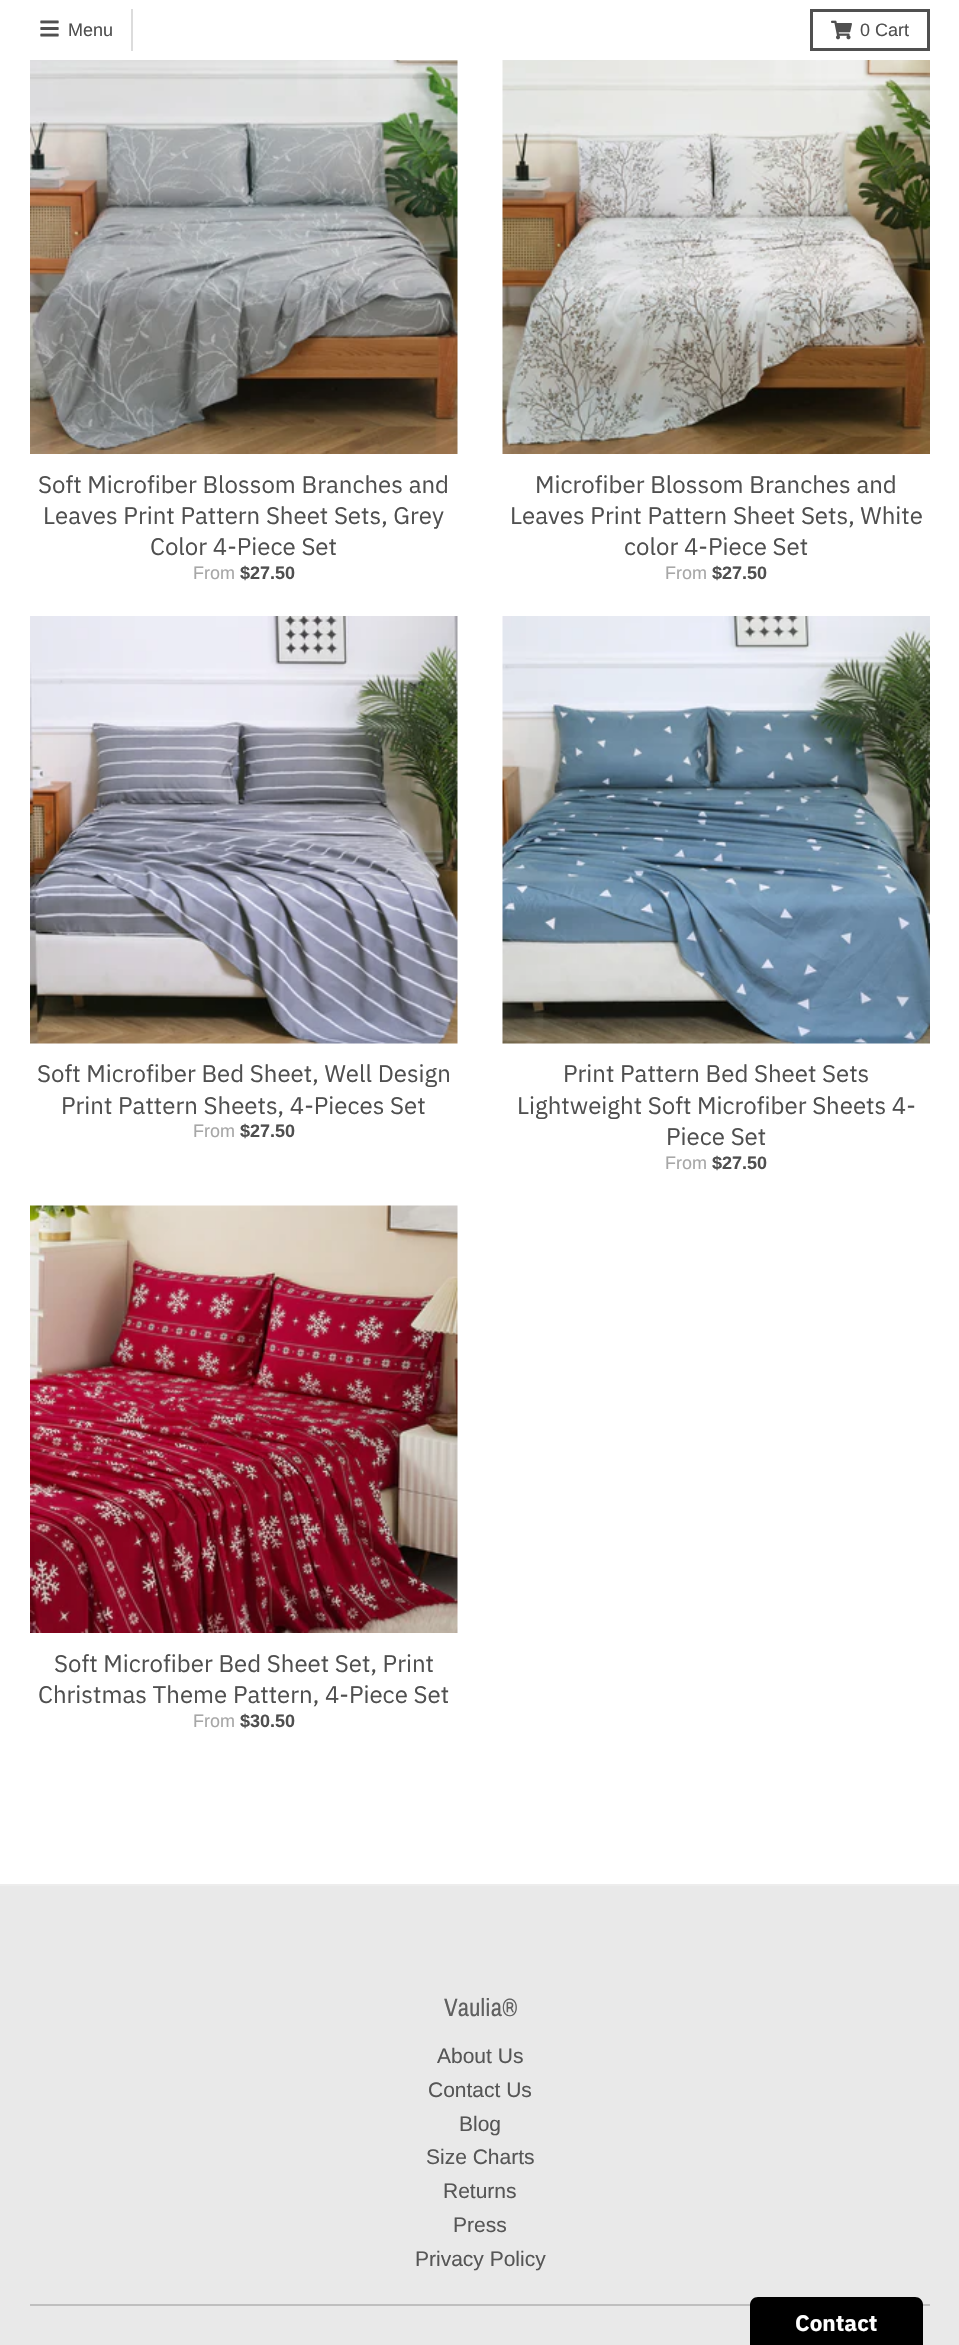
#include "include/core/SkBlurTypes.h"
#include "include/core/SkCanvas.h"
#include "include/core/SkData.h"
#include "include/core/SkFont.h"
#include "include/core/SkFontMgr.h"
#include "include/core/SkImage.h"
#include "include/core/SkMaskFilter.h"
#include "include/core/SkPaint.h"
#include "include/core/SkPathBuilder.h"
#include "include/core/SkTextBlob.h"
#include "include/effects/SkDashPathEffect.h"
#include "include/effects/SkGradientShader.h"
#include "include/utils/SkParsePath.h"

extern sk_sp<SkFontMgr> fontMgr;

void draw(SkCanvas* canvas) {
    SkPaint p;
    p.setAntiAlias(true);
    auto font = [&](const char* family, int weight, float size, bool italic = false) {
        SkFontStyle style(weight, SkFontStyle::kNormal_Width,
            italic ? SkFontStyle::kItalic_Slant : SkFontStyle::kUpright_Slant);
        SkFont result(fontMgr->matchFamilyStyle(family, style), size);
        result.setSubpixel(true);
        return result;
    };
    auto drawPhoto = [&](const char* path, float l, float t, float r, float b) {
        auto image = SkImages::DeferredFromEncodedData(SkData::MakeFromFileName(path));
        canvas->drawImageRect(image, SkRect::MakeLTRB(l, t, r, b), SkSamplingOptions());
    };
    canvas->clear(0xFFFFFFFF);
    p.setColor(0xFFDCDCDC);
    canvas->drawRect(SkRect::MakeLTRB(131, 9, 133, 51), p);
    drawPhoto("media/1.png", 40, 20, 59, 37);
    auto font1 = font("Arimo", 400, 18);
    p.setColor(0xFF4F4F4F);
    canvas->drawString("Menu", 68, 36, font1, p);
    p.setStyle(SkPaint::kStroke_Style);
    p.setStrokeWidth(3);
    p.setColor(0xFF505050);
    canvas->drawRect(SkRect::MakeLTRB(811.5f, 10.5f, 928.5f, 49.5f), p);
    drawPhoto("media/2.png", 831, 20, 852, 40);
    p.setStyle(SkPaint::kFill_Style);
    p.setColor(0xFF4F4F4F);
    canvas->drawString("0 Cart", 860, 36, font1, p);
    p.setColor(0xFFEDEDED);
    canvas->drawRect(SkRect::MakeLTRB(0, 1884, 959, 1886), p);
    drawPhoto("media/3.png", 30, 60, 458, 454);
    auto font2 = font("IBM Plex Sans", 400, 24);
    p.setColor(0xFF4F4F4F);
    {
        const struct { const char* s; float x, y; } items[] = {
            {"Soft Microfiber Blossom Branches and", 38, 493},
            {"Leaves Print Pattern Sheet Sets, Grey", 43, 524},
            {"Color 4-Piece Set", 150, 555},
        };
        for (auto [s, x, y] : items) {
            canvas->drawString(s, x, y, font2, p);
        }
    }
    p.setColor(0xFFA7A7A7);
    canvas->drawString("From", 193, 579, font1, p);
    auto font3 = font("Arimo", 700, 18);
    p.setColor(0xFF4F4F4F);
    canvas->drawString("$27.50", 240, 579, font3, p);
    drawPhoto("media/4.png", 502, 60, 930, 454);
    {
        const struct { const char* s; float x, y; } items[] = {
            {"Microfiber Blossom Branches and", 535, 493},
            {"Leaves Print Pattern Sheet Sets, White", 510, 524},
            {"color 4-Piece Set", 624, 555},
        };
        for (auto [s, x, y] : items) {
            canvas->drawString(s, x, y, font2, p);
        }
    }
    p.setColor(0xFFA7A7A7);
    canvas->drawString("From", 665, 579, font1, p);
    p.setColor(0xFF4F4F4F);
    canvas->drawString("$27.50", 712, 579, font3, p);
    drawPhoto("media/5.png", 30, 616, 458, 1044);
    canvas->drawString("Soft Microfiber Bed Sheet, Well Design", 37, 1082, font2, p);
    canvas->drawString("Print Pattern Sheets, 4-Pieces Set", 61, 1114, font2, p);
    p.setColor(0xFFA7A7A7);
    canvas->drawString("From", 193, 1137, font1, p);
    p.setColor(0xFF4F4F4F);
    canvas->drawString("$27.50", 240, 1137, font3, p);
    drawPhoto("media/6.png", 502, 616, 930, 1044);
    {
        const struct { const char* s; float x, y; } items[] = {
            {"Print Pattern Bed Sheet Sets", 563, 1082},
            {"Lightweight Soft Microfiber Sheets 4-", 517, 1114},
            {"Piece Set", 666, 1145},
        };
        for (auto [s, x, y] : items) {
            canvas->drawString(s, x, y, font2, p);
        }
    }
    p.setColor(0xFFA7A7A7);
    canvas->drawString("From", 665, 1169, font1, p);
    p.setColor(0xFF4F4F4F);
    canvas->drawString("$27.50", 712, 1169, font3, p);
    drawPhoto("media/7.png", 30, 1205, 458, 1633);
    canvas->drawString("Soft Microfiber Bed Sheet Set, Print", 54, 1672, font2, p);
    canvas->drawString("Christmas Theme Pattern, 4-Piece Set", 38, 1703, font2, p);
    p.setColor(0xFFA7A7A7);
    canvas->drawString("From", 193, 1727, font1, p);
    p.setColor(0xFF4F4F4F);
    canvas->drawString("$30.50", 240, 1727, font3, p);
    p.setColor(0xFFE9E9E9);
    canvas->drawRect(SkRect::MakeLTRB(0, 1886, 959, 2345), p);
    auto font4 = font("Archivo Narrow", 400, 25);
    p.setColor(0xFF606060);
    canvas->drawString("Vaulia®", 444, 2016, font4, p);
    p.setColor(0xFFBFBFBF);
    canvas->drawRect(SkRect::MakeLTRB(30, 2304, 930, 2306), p);
    auto font5 = font("Arimo", 400, 21);
    p.setColor(0xFF565656);
    {
        const struct { const char* s; float x, y; } items[] = {
            {"About Us", 437, 2063},
            {"Contact Us", 428, 2097},
            {"Blog", 459, 2131},
            {"Size Charts", 426, 2164},
            {"Returns", 443, 2198},
            {"Press", 453, 2232},
            {"Privacy Policy", 415, 2266},
        };
        for (auto [s, x, y] : items) {
            canvas->drawString(s, x, y, font5, p);
        }
    }
    p.setColor(0xFF000000);
    canvas->drawPath(SkPathBuilder().moveTo(758, 2297).lineTo(915, 2297).cubicTo(919.5f, 2297, 923, 2300.5f, 923, 2305).lineTo(923, 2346).lineTo(750, 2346).lineTo(750, 2305).cubicTo(750, 2300.5f, 753.5f, 2297, 758, 2297).close().detach(), p);
    auto font6 = font("IBM Plex Sans", 700, 22.5f);
    p.setColor(0xFFFFFFFF);
    canvas->drawString("Contact", 795, 2331, font6, p);
}
